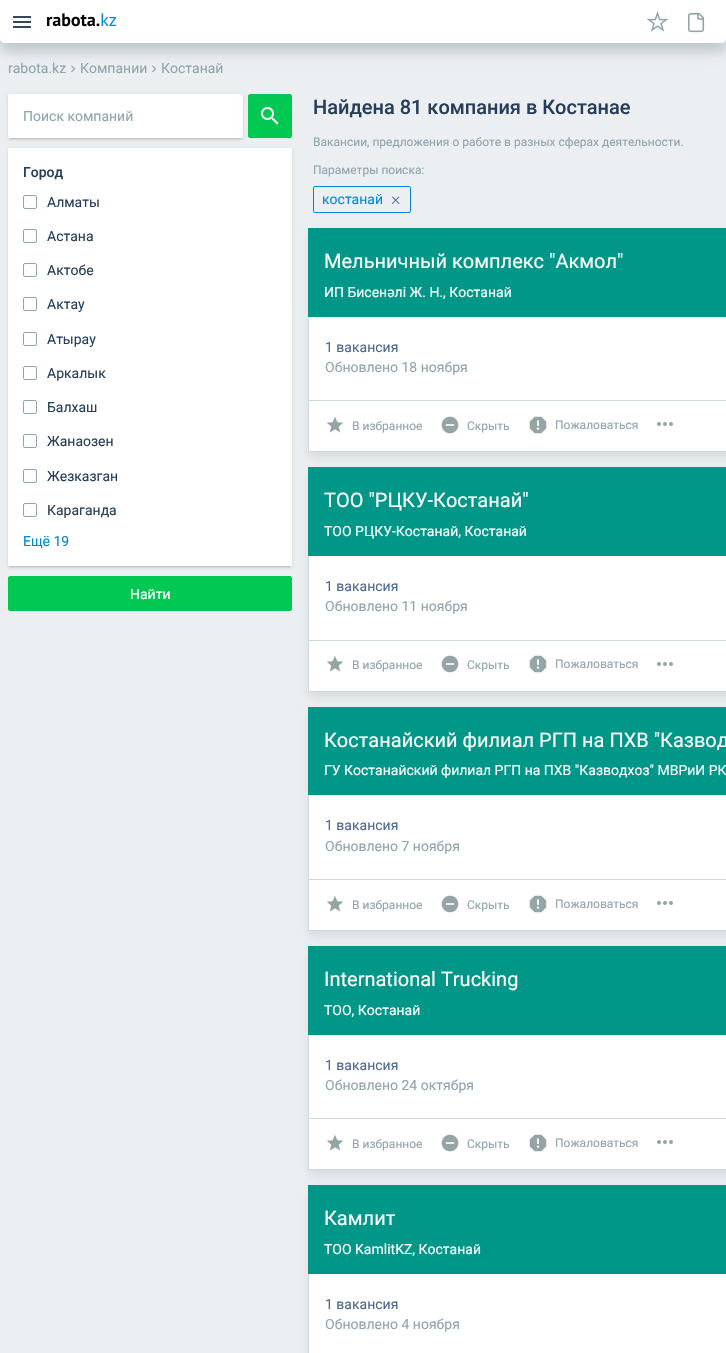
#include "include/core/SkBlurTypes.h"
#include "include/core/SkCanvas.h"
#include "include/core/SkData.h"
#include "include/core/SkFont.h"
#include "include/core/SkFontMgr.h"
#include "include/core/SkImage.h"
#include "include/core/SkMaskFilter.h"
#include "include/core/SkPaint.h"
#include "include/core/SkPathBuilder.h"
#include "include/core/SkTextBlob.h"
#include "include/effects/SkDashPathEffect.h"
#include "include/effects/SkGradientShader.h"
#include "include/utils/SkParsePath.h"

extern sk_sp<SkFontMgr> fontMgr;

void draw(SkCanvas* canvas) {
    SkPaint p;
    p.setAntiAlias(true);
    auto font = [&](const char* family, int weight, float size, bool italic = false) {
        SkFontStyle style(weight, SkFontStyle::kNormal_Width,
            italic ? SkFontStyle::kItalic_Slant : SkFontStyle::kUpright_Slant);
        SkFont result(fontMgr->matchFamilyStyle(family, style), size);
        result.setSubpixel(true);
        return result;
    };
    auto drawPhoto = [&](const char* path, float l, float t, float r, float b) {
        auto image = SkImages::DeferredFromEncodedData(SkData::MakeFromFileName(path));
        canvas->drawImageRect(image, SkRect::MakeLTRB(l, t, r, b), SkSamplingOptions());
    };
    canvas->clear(0xFFECEFF1);
    drawPhoto("media/5.png", 71, 65, 76, 73);
    drawPhoto("media/5.png", 152, 65, 157, 73);
    p.setColor(0x4A95A5A6);
    p.setMaskFilter(SkMaskFilter::MakeBlur(kNormal_SkBlurStyle, 5));
    canvas->drawRoundRect(SkRect::MakeLTRB(0, 10, 726, 53), 5, 5, p);
    p.setMaskFilter(nullptr);
    p.setColor(0x7095A5A6);
    p.setMaskFilter(SkMaskFilter::MakeBlur(kNormal_SkBlurStyle, 10));
    canvas->drawRoundRect(SkRect::MakeLTRB(0, 4, 726, 47), 5, 5, p);
    p.setMaskFilter(nullptr);
    p.setColor(0xFFFFFFFF);
    canvas->drawPath(SkPathBuilder().moveTo(0, 0).lineTo(726, 0).lineTo(726, 38).cubicTo(726, 41, 724, 43, 721, 43).lineTo(5, 43).cubicTo(2, 43, 0, 41, 0, 38).close().detach(), p);
    drawPhoto("media/1.png", 13, 16, 31, 28);
    drawPhoto("media/2.png", 47, 13, 116, 27);
    drawPhoto("media/3.png", 646, 11, 669, 32);
    drawPhoto("media/4.png", 688, 13, 705, 33);
    auto font1 = font("Roboto", 400, 14);
    p.setColor(0xFF90A4AE);
    {
        const struct { const char* s; float x, y; } items[] = {
            {"rabota.kz", 8, 73},
            {"Компании", 80, 73},
            {"Костанай", 161, 73},
        };
        for (auto [s, x, y] : items) {
            canvas->drawString(s, x, y, font1, p);
        }
    }
    p.setColor(0x1F757575);
    p.setMaskFilter(SkMaskFilter::MakeBlur(kNormal_SkBlurStyle, 2.5f));
    canvas->drawRect(SkRect::MakeLTRB(8, 95, 243, 139), p);
    p.setMaskFilter(nullptr);
    p.setColor(0x33757575);
    p.setMaskFilter(SkMaskFilter::MakeBlur(kNormal_SkBlurStyle, 0.5f));
    canvas->drawRect(SkRect::MakeLTRB(10, 99, 241, 139), p);
    p.setMaskFilter(nullptr);
    p.setColor(0x24757575);
    p.setMaskFilter(SkMaskFilter::MakeBlur(kNormal_SkBlurStyle, 1));
    canvas->drawRect(SkRect::MakeLTRB(8, 96, 243, 140), p);
    p.setMaskFilter(nullptr);
    p.setColor(0xFFFFFFFF);
    canvas->drawRoundRect(SkRect::MakeLTRB(8, 94, 243, 138), 2, 2, p);
    p.setColor(0xFF90A4AE);
    canvas->drawString("Поиск компаний", 23, 121, font1, p);
    p.setColor(0xFF00C853);
    canvas->drawRoundRect(SkRect::MakeLTRB(248.5f, 94.5f, 291.5f, 137.5f), 1.5f, 1.5f, p);
    p.setStyle(SkPaint::kStroke_Style);
    p.setStrokeWidth(1);
    canvas->drawRoundRect(SkRect::MakeLTRB(248.5f, 94.5f, 291.5f, 137.5f), 1.5f, 1.5f, p);
    drawPhoto("media/6.png", 261, 107, 279, 125);
    p.setStyle(SkPaint::kFill_Style);
    p.setColor(0x1F757575);
    p.setMaskFilter(SkMaskFilter::MakeBlur(kNormal_SkBlurStyle, 2.5f));
    canvas->drawRect(SkRect::MakeLTRB(8, 149, 292, 567), p);
    p.setMaskFilter(nullptr);
    p.setColor(0x33757575);
    p.setMaskFilter(SkMaskFilter::MakeBlur(kNormal_SkBlurStyle, 0.5f));
    canvas->drawRect(SkRect::MakeLTRB(10, 153, 290, 567), p);
    p.setMaskFilter(nullptr);
    p.setColor(0x24757575);
    p.setMaskFilter(SkMaskFilter::MakeBlur(kNormal_SkBlurStyle, 1));
    canvas->drawRect(SkRect::MakeLTRB(8, 150, 292, 568), p);
    p.setMaskFilter(nullptr);
    p.setColor(0xFFFFFFFF);
    canvas->drawRect(SkRect::MakeLTRB(8, 148, 292, 566), p);
    auto font2 = font("Roboto", 500, 14);
    p.setColor(0xFF263E59);
    canvas->drawString("Город", 23, 177, font2, p);
    p.setStyle(SkPaint::kStroke_Style);
    p.setColor(0xFF90A4AE);
    canvas->drawRoundRect(SkRect::MakeLTRB(23.5f, 195.5f, 36.5f, 208.5f), 1.5f, 1.5f, p);
    p.setStyle(SkPaint::kFill_Style);
    p.setColor(0xFF263E59);
    canvas->drawString("Алматы", 47, 207, font1, p);
    p.setStyle(SkPaint::kStroke_Style);
    p.setColor(0xFF90A4AE);
    canvas->drawRoundRect(SkRect::MakeLTRB(23.5f, 229.5f, 36.5f, 242.5f), 1.5f, 1.5f, p);
    p.setStyle(SkPaint::kFill_Style);
    p.setColor(0xFF263E59);
    canvas->drawString("Астана", 47, 241, font1, p);
    p.setStyle(SkPaint::kStroke_Style);
    p.setColor(0xFF90A4AE);
    canvas->drawRoundRect(SkRect::MakeLTRB(23.5f, 263.5f, 36.5f, 276.5f), 1.5f, 1.5f, p);
    p.setStyle(SkPaint::kFill_Style);
    p.setColor(0xFF263E59);
    canvas->drawString("Актобе", 47, 275, font1, p);
    p.setStyle(SkPaint::kStroke_Style);
    p.setColor(0xFF90A4AE);
    canvas->drawRoundRect(SkRect::MakeLTRB(23.5f, 297.5f, 36.5f, 310.5f), 1.5f, 1.5f, p);
    p.setStyle(SkPaint::kFill_Style);
    p.setColor(0xFF263E59);
    canvas->drawString("Актау", 47, 309, font1, p);
    p.setStyle(SkPaint::kStroke_Style);
    p.setColor(0xFF90A4AE);
    canvas->drawRoundRect(SkRect::MakeLTRB(23.5f, 332.5f, 36.5f, 345.5f), 1.5f, 1.5f, p);
    p.setStyle(SkPaint::kFill_Style);
    p.setColor(0xFF263E59);
    canvas->drawString("Атырау", 47, 344, font1, p);
    p.setStyle(SkPaint::kStroke_Style);
    p.setColor(0xFF90A4AE);
    canvas->drawRoundRect(SkRect::MakeLTRB(23.5f, 366.5f, 36.5f, 379.5f), 1.5f, 1.5f, p);
    p.setStyle(SkPaint::kFill_Style);
    p.setColor(0xFF263E59);
    canvas->drawString("Аркалык", 47, 378, font1, p);
    p.setStyle(SkPaint::kStroke_Style);
    p.setColor(0xFF90A4AE);
    canvas->drawRoundRect(SkRect::MakeLTRB(23.5f, 400.5f, 36.5f, 413.5f), 1.5f, 1.5f, p);
    p.setStyle(SkPaint::kFill_Style);
    p.setColor(0xFF263E59);
    canvas->drawString("Балхаш", 47, 412, font1, p);
    p.setStyle(SkPaint::kStroke_Style);
    p.setColor(0xFF90A4AE);
    canvas->drawRoundRect(SkRect::MakeLTRB(23.5f, 434.5f, 36.5f, 447.5f), 1.5f, 1.5f, p);
    p.setStyle(SkPaint::kFill_Style);
    p.setColor(0xFF263E59);
    canvas->drawString("Жанаозен", 47, 446, font1, p);
    p.setStyle(SkPaint::kStroke_Style);
    p.setColor(0xFF90A4AE);
    canvas->drawRoundRect(SkRect::MakeLTRB(23.5f, 469.5f, 36.5f, 482.5f), 1.5f, 1.5f, p);
    p.setStyle(SkPaint::kFill_Style);
    p.setColor(0xFF263E59);
    canvas->drawString("Жезказган", 47, 481, font1, p);
    p.setStyle(SkPaint::kStroke_Style);
    p.setColor(0xFF90A4AE);
    canvas->drawRoundRect(SkRect::MakeLTRB(23.5f, 503.5f, 36.5f, 516.5f), 1.5f, 1.5f, p);
    p.setStyle(SkPaint::kFill_Style);
    p.setColor(0xFF263E59);
    canvas->drawString("Караганда", 47, 515, font1, p);
    p.setColor(0xFF0288D1);
    canvas->drawString("Ещё 19", 23, 546, font1, p);
    p.setColor(0xFF00C853);
    canvas->drawRoundRect(SkRect::MakeLTRB(8.5f, 576.5f, 291.5f, 610.5f), 1.5f, 1.5f, p);
    p.setStyle(SkPaint::kStroke_Style);
    canvas->drawRoundRect(SkRect::MakeLTRB(8.5f, 576.5f, 291.5f, 610.5f), 1.5f, 1.5f, p);
    p.setStyle(SkPaint::kFill_Style);
    p.setColor(0xFFFFFFFF);
    canvas->drawString("Найти", 130, 599, font1, p);
    auto font3 = font("Roboto", 500, 20);
    p.setColor(0xFF263E59);
    canvas->drawString("Найдена 81 компания в Костанае", 313, 114, font3, p);
    auto font4 = font("Roboto", 400, 12);
    p.setColor(0xFF90A4AE);
    canvas->drawString("Вакансии, предложения о работе в разных сферах деятельности.", 313, 146, font4, p);
    canvas->drawString("Параметры поиска:", 313, 174, font4, p);
    p.setStyle(SkPaint::kStroke_Style);
    p.setColor(0xFF0288D1);
    canvas->drawRoundRect(SkRect::MakeLTRB(313.5f, 186.5f, 410.5f, 212.5f), 1.5f, 1.5f, p);
    p.setStyle(SkPaint::kFill_Style);
    canvas->drawString("костанай", 322, 204, font1, p);
    auto font5 = font("Roboto", 300, 18);
    p.setColor(0xFF4B678B);
    canvas->drawString("×", 391, 205, font5, p);
    p.setColor(0x408EA3A8);
    p.setMaskFilter(SkMaskFilter::MakeBlur(kNormal_SkBlurStyle, 5));
    canvas->drawRect(SkRect::MakeLTRB(308, 234, 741, 458), p);
    p.setMaskFilter(nullptr);
    p.setColor(0xFFFFFFFF);
    canvas->drawRect(SkRect::MakeLTRB(309, 317, 726, 451), p);
    p.setColor(0xFF009688);
    canvas->drawRect(SkRect::MakeLTRB(308, 228, 726, 317), p);
    auto font6 = font("Roboto", 400, 20);
    p.setColor(0xFFFFFFFF);
    canvas->drawString("Мельничный комплекс \"Акмол\"", 324, 268, font6, p);
    canvas->drawString("ИП Бисенәлі Ж. Н., Костанай", 324, 297, font1, p);
    p.setColor(0xFFCFD8DC);
    canvas->drawRect(SkRect::MakeLTRB(308, 317, 309, 400), p);
    p.setColor(0xFF4B678B);
    canvas->drawString("1 вакансия", 325, 352, font1, p);
    p.setColor(0xFF90A4AE);
    canvas->drawString("Обновлено 18 ноября", 325, 372, font1, p);
    p.setStyle(SkPaint::kStroke_Style);
    p.setColor(0xFFCFD8DC);
    canvas->drawRect(SkRect::MakeLTRB(308.5f, 400.5f, 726.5f, 451.5f), p);
    drawPhoto("media/7.png", 326, 417, 344, 433);
    p.setStyle(SkPaint::kFill_Style);
    p.setColor(0xFF90A4AE);
    canvas->drawString("В избранное", 352, 430, font4, p);
    drawPhoto("media/8.png", 441, 416, 459, 434);
    canvas->drawString("Скрыть", 467, 430, font4, p);
    drawPhoto("media/9.png", 529, 416, 547, 434);
    canvas->drawString("Пожаловаться", 555, 429, font4, p);
    drawPhoto("media/10.png", 657, 422, 673, 426);
    p.setColor(0x408EA3A8);
    p.setMaskFilter(SkMaskFilter::MakeBlur(kNormal_SkBlurStyle, 5));
    canvas->drawRect(SkRect::MakeLTRB(308, 473, 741, 698), p);
    p.setMaskFilter(nullptr);
    p.setColor(0xFFFFFFFF);
    canvas->drawRect(SkRect::MakeLTRB(309, 556, 726, 691), p);
    p.setColor(0xFF009688);
    canvas->drawRect(SkRect::MakeLTRB(308, 467, 726, 556), p);
    p.setColor(0xFFFFFFFF);
    canvas->drawString("ТОО \"РЦКУ-Костанай\"", 324, 507, font6, p);
    canvas->drawString("ТОО РЦКУ-Костанай, Костанай", 324, 536, font1, p);
    p.setColor(0xFFCFD8DC);
    canvas->drawRect(SkRect::MakeLTRB(308, 556, 309, 640), p);
    p.setColor(0xFF4B678B);
    canvas->drawString("1 вакансия", 325, 591, font1, p);
    p.setColor(0xFF90A4AE);
    canvas->drawString("Обновлено 11 ноября", 325, 611, font1, p);
    p.setStyle(SkPaint::kStroke_Style);
    p.setColor(0xFFCFD8DC);
    canvas->drawRect(SkRect::MakeLTRB(308.5f, 640.5f, 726.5f, 691.5f), p);
    drawPhoto("media/7.png", 326, 656, 344, 672);
    p.setStyle(SkPaint::kFill_Style);
    p.setColor(0xFF90A4AE);
    canvas->drawString("В избранное", 352, 669, font4, p);
    drawPhoto("media/8.png", 441, 655, 459, 673);
    canvas->drawString("Скрыть", 467, 669, font4, p);
    drawPhoto("media/9.png", 529, 655, 547, 673);
    canvas->drawString("Пожаловаться", 555, 668, font4, p);
    drawPhoto("media/10.png", 657, 662, 673, 666);
    p.setColor(0x408EA3A8);
    p.setMaskFilter(SkMaskFilter::MakeBlur(kNormal_SkBlurStyle, 5));
    canvas->drawRect(SkRect::MakeLTRB(308, 713, 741, 937), p);
    p.setMaskFilter(nullptr);
    p.setColor(0xFFFFFFFF);
    canvas->drawRect(SkRect::MakeLTRB(309, 795, 726, 930), p);
    p.setColor(0xFF009688);
    canvas->drawRect(SkRect::MakeLTRB(308, 707, 726, 795), p);
    p.setColor(0xFFFFFFFF);
    canvas->drawString("Костанайский филиал РГП на ПХВ \"Казвод", 324, 747, font6, p);
    canvas->drawString("ГУ Костанайский филиал РГП на ПХВ \"Казводхоз\" МВРиИ РК", 324, 775, font1, p);
    p.setColor(0xFFCFD8DC);
    canvas->drawRect(SkRect::MakeLTRB(308, 795, 309, 879), p);
    p.setColor(0xFF4B678B);
    canvas->drawString("1 вакансия", 325, 830, font1, p);
    p.setColor(0xFF90A4AE);
    canvas->drawString("Обновлено 7 ноября", 325, 851, font1, p);
    p.setStyle(SkPaint::kStroke_Style);
    p.setColor(0xFFCFD8DC);
    canvas->drawRect(SkRect::MakeLTRB(308.5f, 879.5f, 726.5f, 930.5f), p);
    drawPhoto("media/7.png", 326, 896, 344, 912);
    p.setStyle(SkPaint::kFill_Style);
    p.setColor(0xFF90A4AE);
    canvas->drawString("В избранное", 352, 909, font4, p);
    drawPhoto("media/8.png", 441, 895, 459, 913);
    canvas->drawString("Скрыть", 467, 909, font4, p);
    drawPhoto("media/9.png", 529, 895, 547, 913);
    canvas->drawString("Пожаловаться", 555, 908, font4, p);
    drawPhoto("media/10.png", 657, 901, 673, 905);
    p.setColor(0x408EA3A8);
    p.setMaskFilter(SkMaskFilter::MakeBlur(kNormal_SkBlurStyle, 5));
    canvas->drawRect(SkRect::MakeLTRB(308, 952, 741, 1176), p);
    p.setMaskFilter(nullptr);
    p.setColor(0xFFFFFFFF);
    canvas->drawRect(SkRect::MakeLTRB(309, 1035, 726, 1169), p);
    p.setColor(0xFF009688);
    canvas->drawRect(SkRect::MakeLTRB(308, 946, 726, 1035), p);
    p.setColor(0xFFFFFFFF);
    canvas->drawString("International Trucking", 324, 986, font6, p);
    canvas->drawString("ТОО, Костанай", 324, 1015, font1, p);
    p.setColor(0xFFCFD8DC);
    canvas->drawRect(SkRect::MakeLTRB(308, 1035, 309, 1118), p);
    p.setColor(0xFF4B678B);
    canvas->drawString("1 вакансия", 325, 1070, font1, p);
    p.setColor(0xFF90A4AE);
    canvas->drawString("Обновлено 24 октября", 325, 1090, font1, p);
    p.setStyle(SkPaint::kStroke_Style);
    p.setColor(0xFFCFD8DC);
    canvas->drawRect(SkRect::MakeLTRB(308.5f, 1118.5f, 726.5f, 1169.5f), p);
    drawPhoto("media/7.png", 326, 1135, 344, 1151);
    p.setStyle(SkPaint::kFill_Style);
    p.setColor(0xFF90A4AE);
    canvas->drawString("В избранное", 352, 1148, font4, p);
    drawPhoto("media/8.png", 441, 1134, 459, 1152);
    canvas->drawString("Скрыть", 467, 1148, font4, p);
    drawPhoto("media/9.png", 529, 1134, 547, 1152);
    canvas->drawString("Пожаловаться", 555, 1147, font4, p);
    drawPhoto("media/10.png", 657, 1140, 673, 1144);
    p.setColor(0x408EA3A8);
    p.setMaskFilter(SkMaskFilter::MakeBlur(kNormal_SkBlurStyle, 5));
    canvas->drawRect(SkRect::MakeLTRB(308, 1191, 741, 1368), p);
    p.setMaskFilter(nullptr);
    p.setColor(0xFFFFFFFF);
    canvas->drawRect(SkRect::MakeLTRB(309, 1274, 726, 1353), p);
    p.setColor(0xFF009688);
    canvas->drawRect(SkRect::MakeLTRB(308, 1185, 726, 1274), p);
    p.setColor(0xFFFFFFFF);
    canvas->drawString("Камлит", 324, 1225, font6, p);
    canvas->drawString("ТОО KamlitKZ, Костанай", 324, 1254, font1, p);
    p.setColor(0xFFCFD8DC);
    canvas->drawRect(SkRect::MakeLTRB(308, 1274, 309, 1353), p);
    p.setColor(0xFF4B678B);
    canvas->drawString("1 вакансия", 325, 1309, font1, p);
    p.setColor(0xFF90A4AE);
    canvas->drawString("Обновлено 4 ноября", 325, 1329, font1, p);
}
